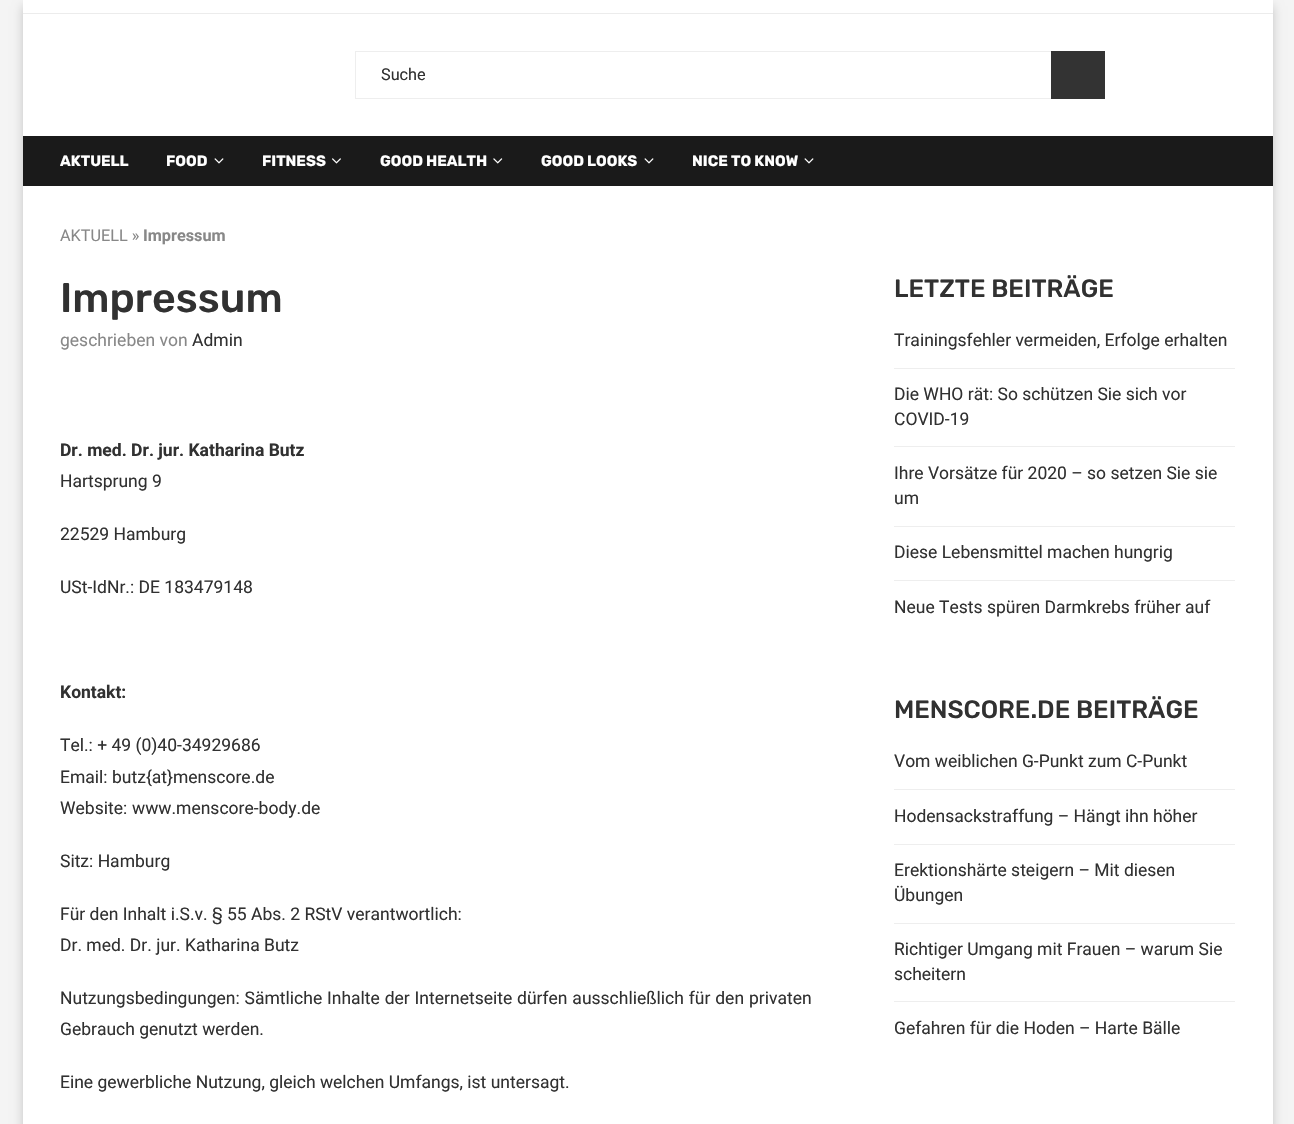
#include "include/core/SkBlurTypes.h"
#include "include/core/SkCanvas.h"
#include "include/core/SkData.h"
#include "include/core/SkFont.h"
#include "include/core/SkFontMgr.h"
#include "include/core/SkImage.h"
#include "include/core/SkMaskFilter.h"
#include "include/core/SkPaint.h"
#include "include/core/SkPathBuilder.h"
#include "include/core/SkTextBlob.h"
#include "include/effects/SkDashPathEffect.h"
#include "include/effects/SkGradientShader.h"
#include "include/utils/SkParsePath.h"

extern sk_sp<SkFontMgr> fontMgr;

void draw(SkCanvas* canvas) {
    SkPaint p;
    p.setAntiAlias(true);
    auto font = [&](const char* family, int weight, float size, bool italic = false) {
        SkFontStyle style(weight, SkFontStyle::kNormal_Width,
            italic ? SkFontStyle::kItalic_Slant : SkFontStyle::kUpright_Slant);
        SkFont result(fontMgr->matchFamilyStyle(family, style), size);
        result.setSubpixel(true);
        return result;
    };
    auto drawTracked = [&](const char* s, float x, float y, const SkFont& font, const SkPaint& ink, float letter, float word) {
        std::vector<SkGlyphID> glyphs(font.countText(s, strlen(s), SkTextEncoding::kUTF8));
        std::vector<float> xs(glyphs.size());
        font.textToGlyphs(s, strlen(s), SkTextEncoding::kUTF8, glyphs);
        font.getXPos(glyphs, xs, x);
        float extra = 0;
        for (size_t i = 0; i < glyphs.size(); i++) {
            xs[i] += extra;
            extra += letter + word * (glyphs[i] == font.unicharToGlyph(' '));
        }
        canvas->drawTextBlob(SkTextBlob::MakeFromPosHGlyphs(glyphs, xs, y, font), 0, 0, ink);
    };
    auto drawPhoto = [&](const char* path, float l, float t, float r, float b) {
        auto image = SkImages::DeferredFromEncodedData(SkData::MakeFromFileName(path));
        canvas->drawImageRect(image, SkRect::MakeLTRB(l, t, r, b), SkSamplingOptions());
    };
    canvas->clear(0xFFF4F4F4);
    p.setColor(0x33000000);
    p.setMaskFilter(SkMaskFilter::MakeBlur(kNormal_SkBlurStyle, 5));
    canvas->drawRect(SkRect::MakeLTRB(23, 6, 1273, 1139), p);
    p.setMaskFilter(nullptr);
    {
        const struct { float l, t, r, b; SkColor color; } items[] = {
            {23, 0, 1273, 1124, 0xFFFFFFFF},
            {23, 13, 1273, 14, 0xFFECECEC},
            {355, 51, 1051, 52, 0xFFEEEEEE},
            {355, 98, 1051, 99, 0xFFEEEEEE},
            {355, 51, 356, 99, 0xFFEEEEEE},
        };
        for (auto [l, t, r, b, color] : items) {
            p.setColor(color);
            canvas->drawRect(SkRect::MakeLTRB(l, t, r, b), p);
        }
    }
    auto font1 = font("Roboto", 400, 16.25f);
    p.setColor(0xFF313131);
    canvas->drawString("Suche", 381, 80, font1, p);
    p.setColor(0xFF333333);
    canvas->drawRect(SkRect::MakeLTRB(1051, 51, 1105, 99), p);
    p.setColor(0xFF1A1A1A);
    canvas->drawRect(SkRect::MakeLTRB(23, 136, 1273, 186), p);
    auto font2 = font("Rubik", 700, 15);
    p.setColor(0xFFFFFFFF);
    canvas->drawString("AKTUELL", 60, 166, font2, p);
    canvas->drawString("FOOD", 166, 166, font2, p);
    drawPhoto("media/1.png", 214, 158, 224, 164);
    canvas->drawString("FITNESS", 262, 166, font2, p);
    drawPhoto("media/2.png", 332, 158, 341, 164);
    canvas->drawString("GOOD HEALTH", 380, 166, font2, p);
    drawPhoto("media/3.png", 493, 158, 503, 164);
    canvas->drawString("GOOD LOOKS", 541, 166, font2, p);
    drawPhoto("media/1.png", 644, 158, 654, 164);
    canvas->drawString("NICE TO KNOW", 692, 166, font2, p);
    drawPhoto("media/1.png", 804, 158, 814, 164);
    p.setColor(0xFF888888);
    canvas->drawString("AKTUELL »", 60, 241, font1, p);
    auto font3 = font("Roboto", 700, 16.25f);
    canvas->drawString("Impressum", 143, 241, font3, p);
    auto font4 = font("Rubik", 500, 41.25f);
    p.setColor(0xFF313131);
    canvas->drawString("Impressum", 60, 312, font4, p);
    auto font5 = font("Roboto", 400, 17.5f);
    p.setColor(0xFF888888);
    canvas->drawString("geschrieben von", 60, 346, font5, p);
    p.setColor(0xFF313131);
    canvas->drawString("Admin", 192, 346, font5, p);
    auto font6 = font("Roboto", 700, 17.5f);
    canvas->drawString("Dr. med. Dr. jur. Katharina Butz", 60, 456, font6, p);
    {
        const struct { const char* s; float x, y; } items[] = {
            {"Hartsprung 9", 60, 487},
            {"22529 Hamburg", 60, 540},
            {"USt-IdNr.: DE 183479148", 60, 593},
        };
        for (auto [s, x, y] : items) {
            canvas->drawString(s, x, y, font5, p);
        }
    }
    canvas->drawString("Kontakt:", 60, 698, font6, p);
    {
        const struct { const char* s; float x, y; } items[] = {
            {"Tel.: + 49 (0)40-34929686", 60, 751},
            {"Email:", 60, 783},
            {"butz{at}menscore.de", 112, 783},
            {"Website:", 60, 814},
            {"www.menscore-body.de", 132, 814},
            {"Sitz: Hamburg", 60, 867},
            {"Für den Inhalt i.S.v. § 55 Abs. 2 RStV verantwortlich:", 60, 920},
            {"Dr. med. Dr. jur. Katharina Butz", 60, 951},
        };
        for (auto [s, x, y] : items) {
            canvas->drawString(s, x, y, font5, p);
        }
    }
    drawTracked("Nutzungsbedingungen: Sämtliche Inhalte der Internetseite dürfen ausschließlich für den privaten", 60, 1004, font5, p, 0, 0.5f);
    canvas->drawString("Gebrauch genutzt werden.", 60, 1035, font5, p);
    canvas->drawString("Eine gewerbliche Nutzung, gleich welchen Umfangs, ist untersagt.", 60, 1088, font5, p);
    auto font7 = font("Rubik", 500, 25);
    canvas->drawString("LETZTE BEITRÄGE", 894, 297, font7, p);
    p.setColor(0xFFEEEEEE);
    canvas->drawRect(SkRect::MakeLTRB(894, 368, 1235, 369), p);
    p.setColor(0xFF313131);
    canvas->drawString("Trainingsfehler vermeiden, Erfolge erhalten", 894, 346, font5, p);
    p.setColor(0xFFEEEEEE);
    canvas->drawRect(SkRect::MakeLTRB(894, 446, 1235, 447), p);
    p.setColor(0xFF313131);
    canvas->drawString("Die WHO rät: So schützen Sie sich vor", 894, 400, font5, p);
    canvas->drawString("COVID-19", 894, 425, font5, p);
    p.setColor(0xFFEEEEEE);
    canvas->drawRect(SkRect::MakeLTRB(894, 526, 1235, 527), p);
    p.setColor(0xFF313131);
    canvas->drawString("Ihre Vorsätze für 2020 – so setzen Sie sie", 894, 479, font5, p);
    canvas->drawString("um", 894, 504, font5, p);
    p.setColor(0xFFEEEEEE);
    canvas->drawRect(SkRect::MakeLTRB(894, 580, 1235, 581), p);
    p.setColor(0xFF313131);
    canvas->drawString("Diese Lebensmittel machen hungrig", 894, 558, font5, p);
    canvas->drawString("Neue Tests spüren Darmkrebs früher auf", 894, 613, font5, p);
    canvas->drawString("MENSCORE.DE BEITRÄGE", 894, 718, font7, p);
    p.setColor(0xFFEEEEEE);
    canvas->drawRect(SkRect::MakeLTRB(894, 789, 1235, 790), p);
    p.setColor(0xFF313131);
    canvas->drawString("Vom weiblichen G-Punkt zum C-Punkt", 894, 767, font5, p);
    p.setColor(0xFFEEEEEE);
    canvas->drawRect(SkRect::MakeLTRB(894, 844, 1235, 845), p);
    p.setColor(0xFF313131);
    canvas->drawString("Hodensackstraffung – Hängt ihn höher", 894, 822, font5, p);
    p.setColor(0xFFEEEEEE);
    canvas->drawRect(SkRect::MakeLTRB(894, 923, 1235, 924), p);
    p.setColor(0xFF313131);
    canvas->drawString("Erektionshärte steigern – Mit diesen", 894, 876, font5, p);
    canvas->drawString("Übungen", 894, 901, font5, p);
    p.setColor(0xFFEEEEEE);
    canvas->drawRect(SkRect::MakeLTRB(894, 1001, 1235, 1002), p);
    p.setColor(0xFF313131);
    {
        const struct { const char* s; float x, y; } items[] = {
            {"Richtiger Umgang mit Frauen – warum Sie", 894, 955},
            {"scheitern", 894, 980},
            {"Gefahren für die Hoden – Harte Bälle", 894, 1034},
        };
        for (auto [s, x, y] : items) {
            canvas->drawString(s, x, y, font5, p);
        }
    }
}
